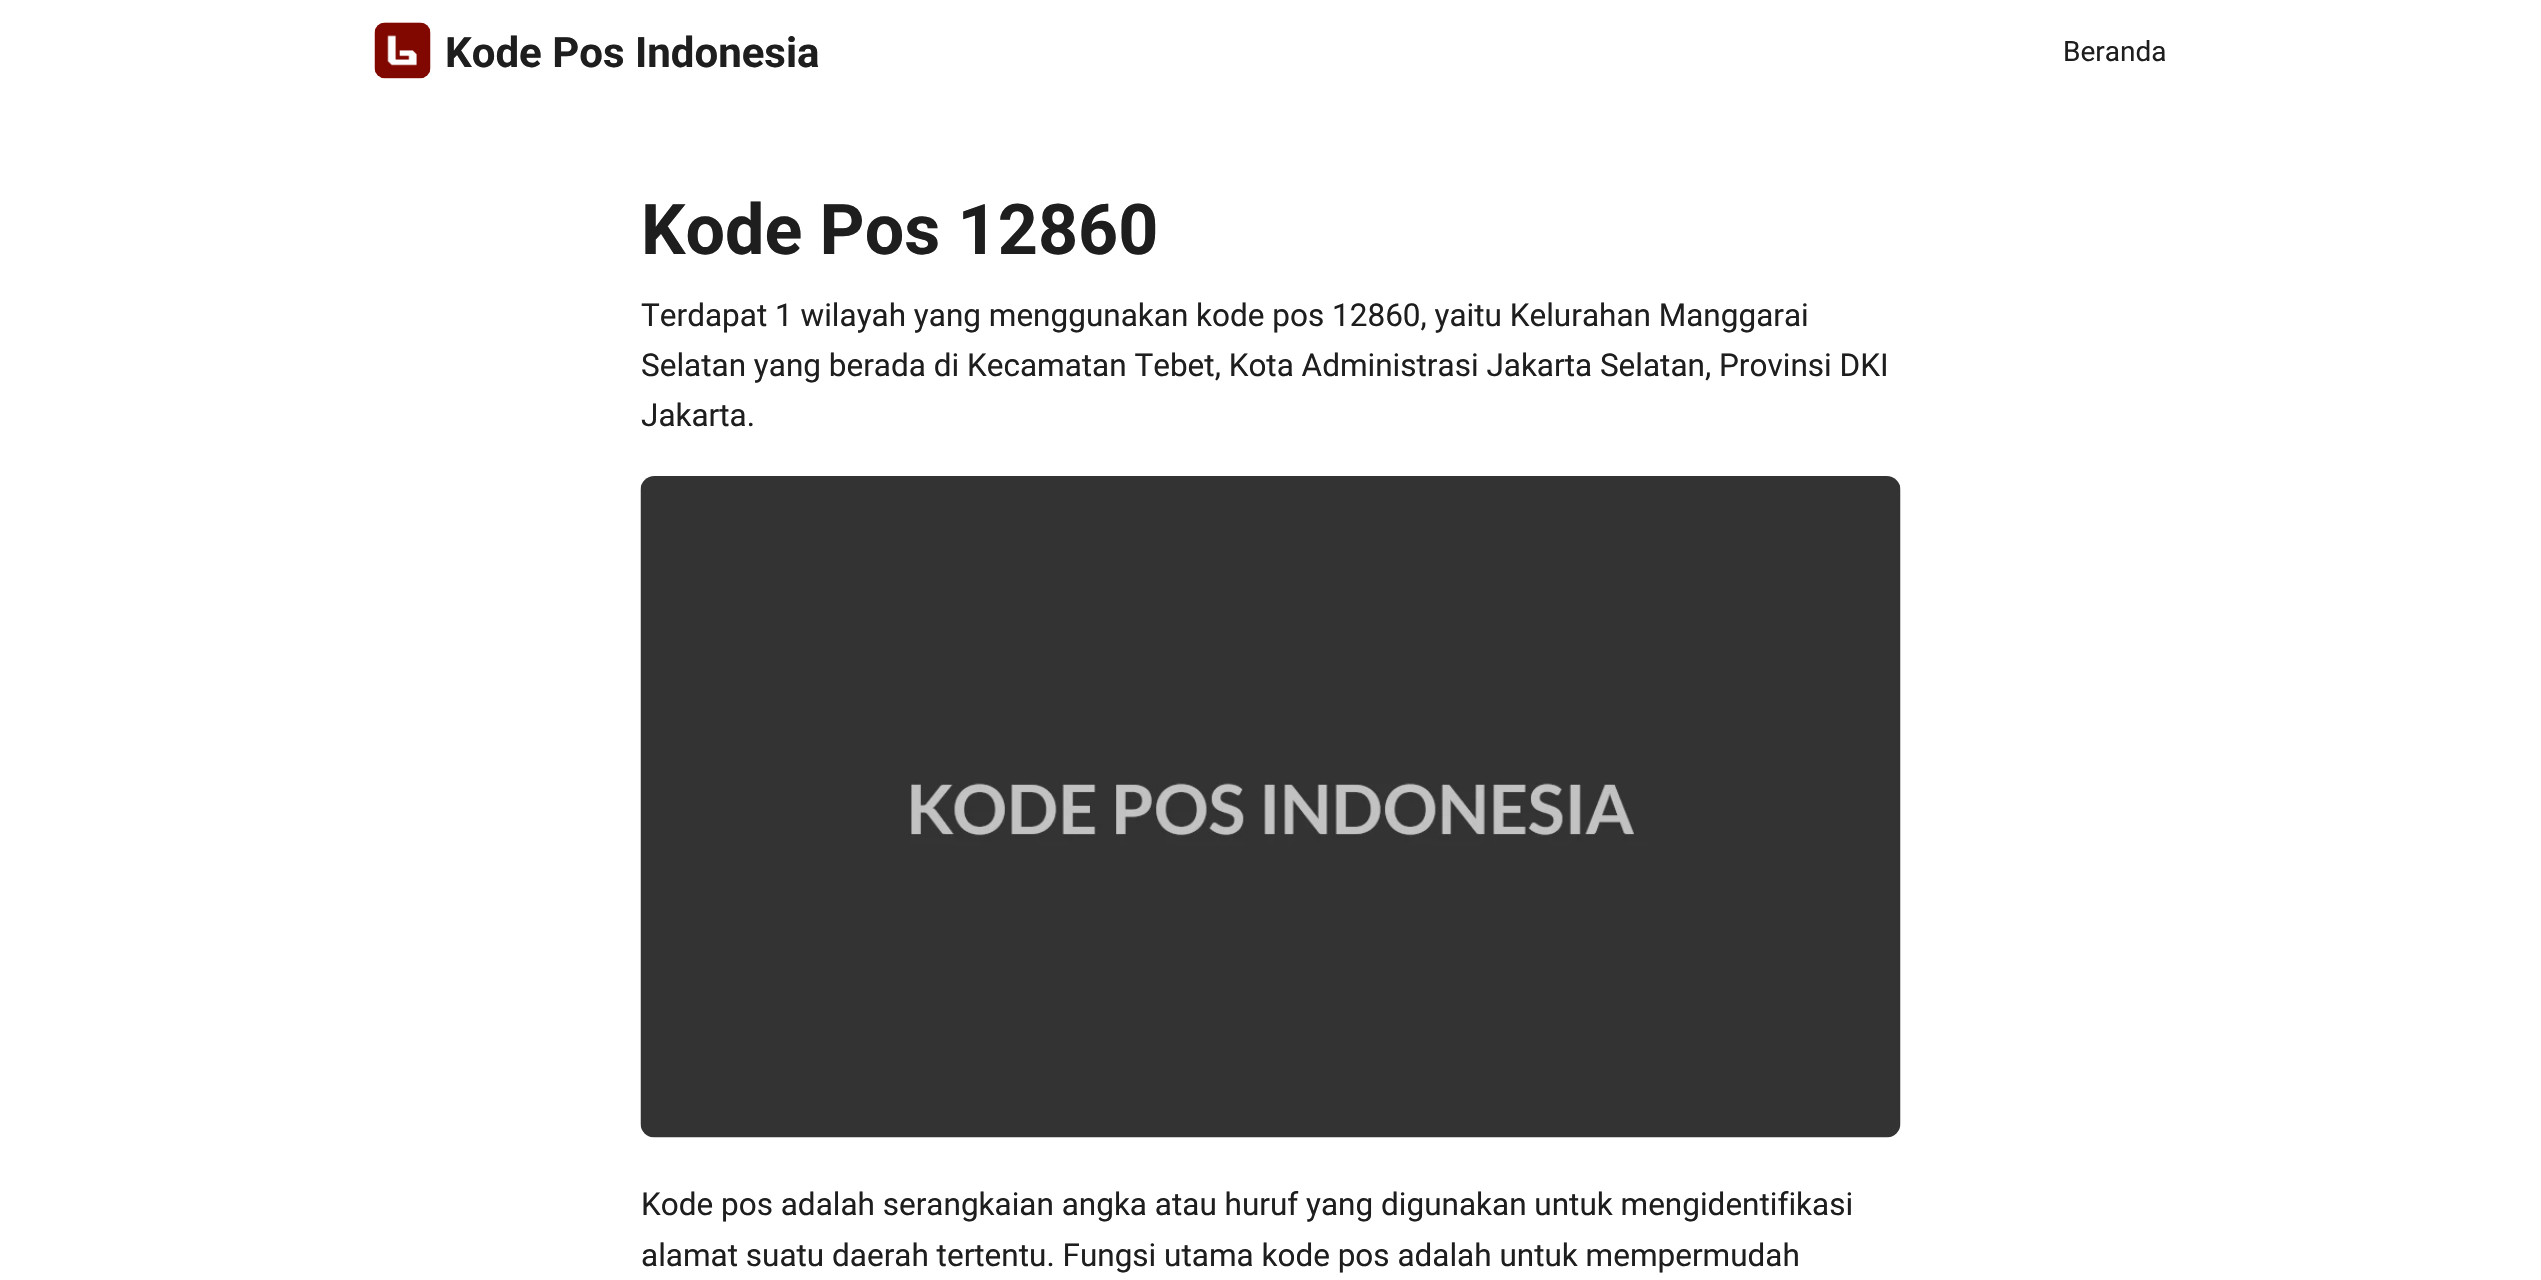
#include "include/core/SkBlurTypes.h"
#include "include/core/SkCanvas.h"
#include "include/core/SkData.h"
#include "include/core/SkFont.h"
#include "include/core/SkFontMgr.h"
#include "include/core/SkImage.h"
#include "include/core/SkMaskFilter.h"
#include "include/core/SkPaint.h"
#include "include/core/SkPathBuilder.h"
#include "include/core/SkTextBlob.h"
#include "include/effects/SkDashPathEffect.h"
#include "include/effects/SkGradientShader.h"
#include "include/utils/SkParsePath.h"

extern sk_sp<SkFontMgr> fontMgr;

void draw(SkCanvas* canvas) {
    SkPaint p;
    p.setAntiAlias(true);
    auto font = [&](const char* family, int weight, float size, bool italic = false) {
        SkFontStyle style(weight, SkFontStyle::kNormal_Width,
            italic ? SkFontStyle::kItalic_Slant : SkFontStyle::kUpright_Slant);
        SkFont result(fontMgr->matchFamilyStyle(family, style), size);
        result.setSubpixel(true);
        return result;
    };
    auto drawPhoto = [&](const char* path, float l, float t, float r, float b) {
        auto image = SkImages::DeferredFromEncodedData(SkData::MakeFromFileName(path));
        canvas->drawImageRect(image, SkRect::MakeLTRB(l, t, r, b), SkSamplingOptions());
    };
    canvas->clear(0xFFFFFFFF);
    drawPhoto("media/1.png", 374, 22, 431, 79);
    auto font1 = font("Roboto", 700, 42);
    p.setColor(0xFF1E1E1E);
    canvas->drawString("Kode Pos Indonesia", 445, 67, font1, p);
    auto font2 = font("Roboto", 400, 28);
    canvas->drawString("Beranda", 2063, 61, font2, p);
    auto font3 = font("Roboto", 700, 70);
    canvas->drawString("Kode Pos 12860", 641, 254, font3, p);
    auto font4 = font("Roboto", 400, 31.5f);
    {
        const struct { const char* s; float x, y; } items[] = {
            {"Terdapat 1 wilayah yang menggunakan kode pos 12860, yaitu Kelurahan Manggarai", 641, 326},
            {"Selatan yang berada di Kecamatan Tebet, Kota Administrasi Jakarta Selatan, Provinsi DKI", 641, 376},
            {"Jakarta.", 641, 426},
        };
        for (auto [s, x, y] : items) {
            canvas->drawString(s, x, y, font4, p);
        }
    }
    drawPhoto("media/2.png", 640, 476, 1901, 1138);
    canvas->drawString("Kode pos adalah serangkaian angka atau huruf yang digunakan untuk mengidentifikasi", 641, 1215, font4, p);
    canvas->drawString("alamat suatu daerah tertentu. Fungsi utama kode pos adalah untuk mempermudah", 641, 1266, font4, p);
}
